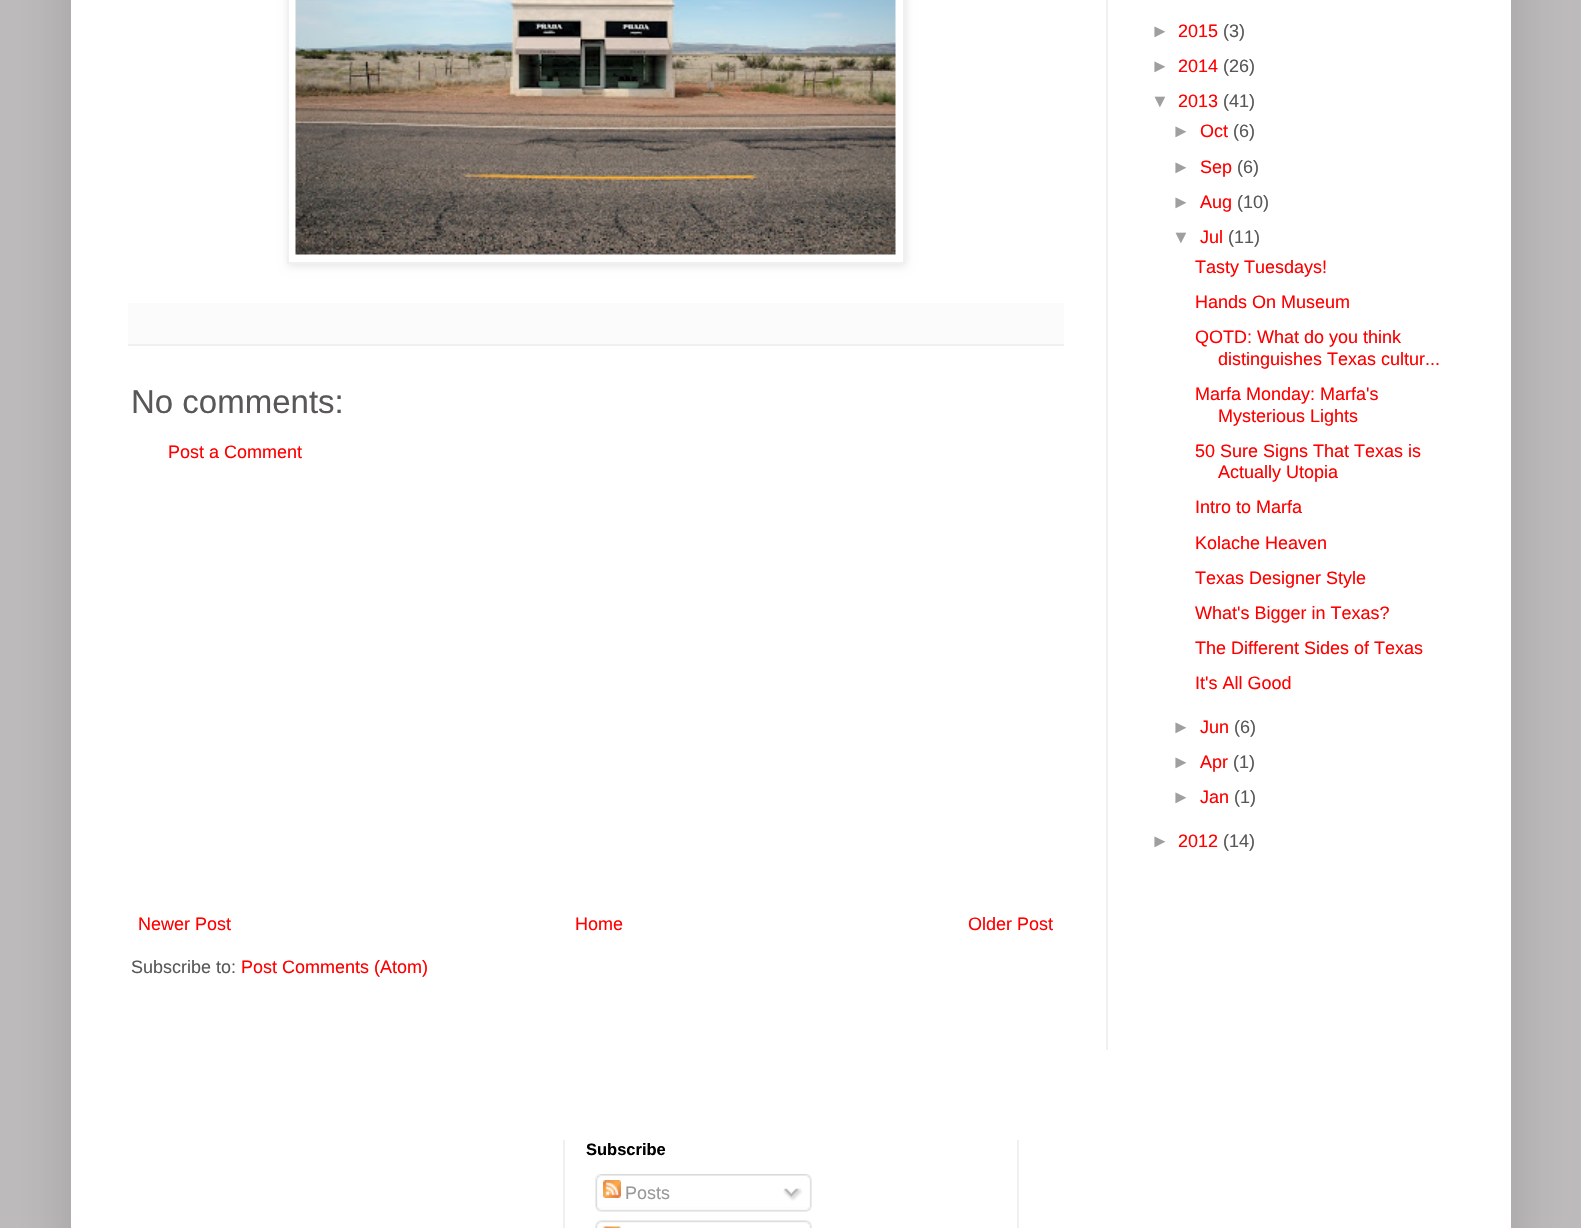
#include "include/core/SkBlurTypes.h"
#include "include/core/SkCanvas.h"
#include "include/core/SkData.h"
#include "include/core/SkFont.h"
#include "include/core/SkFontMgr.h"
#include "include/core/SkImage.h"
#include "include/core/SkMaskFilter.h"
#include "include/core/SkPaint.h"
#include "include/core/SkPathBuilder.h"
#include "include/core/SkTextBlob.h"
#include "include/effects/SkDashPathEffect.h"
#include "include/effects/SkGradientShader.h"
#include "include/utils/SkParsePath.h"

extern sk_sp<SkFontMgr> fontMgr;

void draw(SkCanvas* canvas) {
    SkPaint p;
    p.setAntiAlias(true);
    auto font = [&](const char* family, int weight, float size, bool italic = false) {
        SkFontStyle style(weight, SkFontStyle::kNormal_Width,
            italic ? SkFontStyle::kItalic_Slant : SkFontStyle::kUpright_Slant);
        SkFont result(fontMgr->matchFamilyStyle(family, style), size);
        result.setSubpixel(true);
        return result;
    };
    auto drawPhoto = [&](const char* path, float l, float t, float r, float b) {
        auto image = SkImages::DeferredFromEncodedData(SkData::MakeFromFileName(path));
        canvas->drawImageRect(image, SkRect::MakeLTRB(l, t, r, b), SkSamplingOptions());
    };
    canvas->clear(0xFFBDBBBB);
    p.setColor(0x26000000);
    p.setMaskFilter(SkMaskFilter::MakeBlur(kNormal_SkBlurStyle, 30));
    canvas->drawRect(SkRect::MakeLTRB(71, -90, 1511, 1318), p);
    p.setMaskFilter(nullptr);
    p.setColor(0xFFFFFFFF);
    canvas->drawRect(SkRect::MakeLTRB(71, 0, 1511, 1228), p);
    p.setColor(0xFFF0F0F0);
    canvas->drawRect(SkRect::MakeLTRB(1106, 0, 1108, 1050), p);
    p.setColor(0x1A000000);
    p.setMaskFilter(SkMaskFilter::MakeBlur(kNormal_SkBlurStyle, 4));
    canvas->drawRect(SkRect::MakeLTRB(288, -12, 906, 266), p);
    p.setMaskFilter(nullptr);
    p.setColor(0xFFFFFFFF);
    canvas->drawRect(SkRect::MakeLTRB(288, -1, 904, 263), p);
    p.setStyle(SkPaint::kStroke_Style);
    p.setStrokeWidth(2);
    p.setColor(0xFFF0F0F0);
    canvas->drawRect(SkRect::MakeLTRB(288, -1, 904, 263), p);
    drawPhoto("media/1.png", 295, 0, 896, 255);
    p.setStyle(SkPaint::kFill_Style);
    p.setColor(0xFFFBFBFB);
    canvas->drawRect(SkRect::MakeLTRB(128, 303, 1064, 344), p);
    p.setColor(0xFFF0F0F0);
    canvas->drawRect(SkRect::MakeLTRB(128, 344, 1064, 346), p);
    auto font1 = font("Liberation Sans", 400, 33);
    p.setColor(0xFF595757);
    canvas->drawString("No comments:", 131, 413, font1, p);
    auto font2 = font("Liberation Sans", 400, 18);
    p.setColor(0xFFFF0000);
    {
        const struct { const char* s; float x, y; } items[] = {
            {"Post a Comment", 168, 458},
            {"Newer Post", 138, 930},
            {"Home", 575, 930},
            {"Older Post", 968, 930},
        };
        for (auto [s, x, y] : items) {
            canvas->drawString(s, x, y, font2, p);
        }
    }
    p.setColor(0xFF595757);
    canvas->drawString("Subscribe to:", 131, 973, font2, p);
    p.setColor(0xFFFF0000);
    canvas->drawString("Post Comments (Atom)", 241, 973, font2, p);
    p.setColor(0xFF9F9F9F);
    canvas->drawString("►", 1151, 37, font2, p);
    p.setColor(0xFFFF0000);
    canvas->drawString("2015", 1178, 37, font2, p);
    p.setColor(0xFF595757);
    canvas->drawString("(3)", 1223, 37, font2, p);
    p.setColor(0xFF9F9F9F);
    canvas->drawString("►", 1151, 72, font2, p);
    p.setColor(0xFFFF0000);
    canvas->drawString("2014", 1178, 72, font2, p);
    p.setColor(0xFF595757);
    canvas->drawString("(26)", 1223, 72, font2, p);
    p.setColor(0xFF9F9F9F);
    canvas->drawString("▼", 1151, 107, font2, p);
    p.setColor(0xFFFF0000);
    canvas->drawString("2013", 1178, 107, font2, p);
    p.setColor(0xFF595757);
    canvas->drawString("(41)", 1223, 107, font2, p);
    p.setColor(0xFF9F9F9F);
    canvas->drawString("►", 1172, 137, font2, p);
    p.setColor(0xFFFF0000);
    canvas->drawString("Oct", 1200, 137, font2, p);
    p.setColor(0xFF595757);
    canvas->drawString("(6)", 1233, 137, font2, p);
    p.setColor(0xFF9F9F9F);
    canvas->drawString("►", 1172, 173, font2, p);
    p.setColor(0xFFFF0000);
    canvas->drawString("Sep", 1200, 173, font2, p);
    p.setColor(0xFF595757);
    canvas->drawString("(6)", 1237, 173, font2, p);
    p.setColor(0xFF9F9F9F);
    canvas->drawString("►", 1172, 208, font2, p);
    p.setColor(0xFFFF0000);
    canvas->drawString("Aug", 1200, 208, font2, p);
    p.setColor(0xFF595757);
    canvas->drawString("(10)", 1237, 208, font2, p);
    p.setColor(0xFF9F9F9F);
    canvas->drawString("▼", 1172, 243, font2, p);
    p.setColor(0xFFFF0000);
    canvas->drawString("Jul", 1200, 243, font2, p);
    p.setColor(0xFF595757);
    canvas->drawString("(11)", 1228, 243, font2, p);
    p.setColor(0xFFFF0000);
    {
        const struct { const char* s; float x, y; } items[] = {
            {"Tasty Tuesdays!", 1195, 273},
            {"Hands On Museum", 1195, 308},
            {"QOTD: What do you think", 1195, 343},
            {"distinguishes Texas cultur...", 1218, 365},
            {"Marfa Monday: Marfa's", 1195, 400},
            {"Mysterious Lights", 1218, 422},
            {"50 Sure Signs That Texas is", 1195, 457},
            {"Actually Utopia", 1218, 478},
            {"Intro to Marfa", 1195, 513},
            {"Kolache Heaven", 1195, 549},
            {"Texas Designer Style", 1195, 584},
            {"What's Bigger in Texas?", 1195, 619},
            {"The Different Sides of Texas", 1195, 654},
            {"It's All Good", 1195, 689},
        };
        for (auto [s, x, y] : items) {
            canvas->drawString(s, x, y, font2, p);
        }
    }
    p.setColor(0xFF9F9F9F);
    canvas->drawString("►", 1172, 733, font2, p);
    p.setColor(0xFFFF0000);
    canvas->drawString("Jun", 1200, 733, font2, p);
    p.setColor(0xFF595757);
    canvas->drawString("(6)", 1234, 733, font2, p);
    p.setColor(0xFF9F9F9F);
    canvas->drawString("►", 1172, 768, font2, p);
    p.setColor(0xFFFF0000);
    canvas->drawString("Apr", 1200, 768, font2, p);
    p.setColor(0xFF595757);
    canvas->drawString("(1)", 1233, 768, font2, p);
    p.setColor(0xFF9F9F9F);
    canvas->drawString("►", 1172, 803, font2, p);
    p.setColor(0xFFFF0000);
    canvas->drawString("Jan", 1200, 803, font2, p);
    p.setColor(0xFF595757);
    canvas->drawString("(1)", 1234, 803, font2, p);
    p.setColor(0xFF9F9F9F);
    canvas->drawString("►", 1151, 847, font2, p);
    p.setColor(0xFFFF0000);
    canvas->drawString("2012", 1178, 847, font2, p);
    p.setColor(0xFF595757);
    canvas->drawString("(14)", 1223, 847, font2, p);
    p.setColor(0xFFF0F0F0);
    canvas->drawRect(SkRect::MakeLTRB(563, 1140, 565, 1228), p);
    auto font3 = font("Liberation Sans", 700, 16.5f);
    p.setColor(0xFF000000);
    canvas->drawString("Subscribe", 586, 1155, font3, p);
    drawPhoto("media/2.png", 595, 1174, 812, 1207);
    drawPhoto("media/3.png", 603, 1180, 621, 1198);
    p.setColor(0xFF999999);
    canvas->drawString("Posts", 625, 1199, font2, p);
    drawPhoto("media/4.png", 783, 1188, 803, 1201);
    drawPhoto("media/5.png", 595, 1207, 812, 1212);
    drawPhoto("media/6.png", 595, 1220, 812, 1228);
    drawPhoto("media/7.png", 603, 1226, 621, 1228);
    p.setColor(0xFFF0F0F0);
    canvas->drawRect(SkRect::MakeLTRB(1017, 1140, 1019, 1228), p);
}
